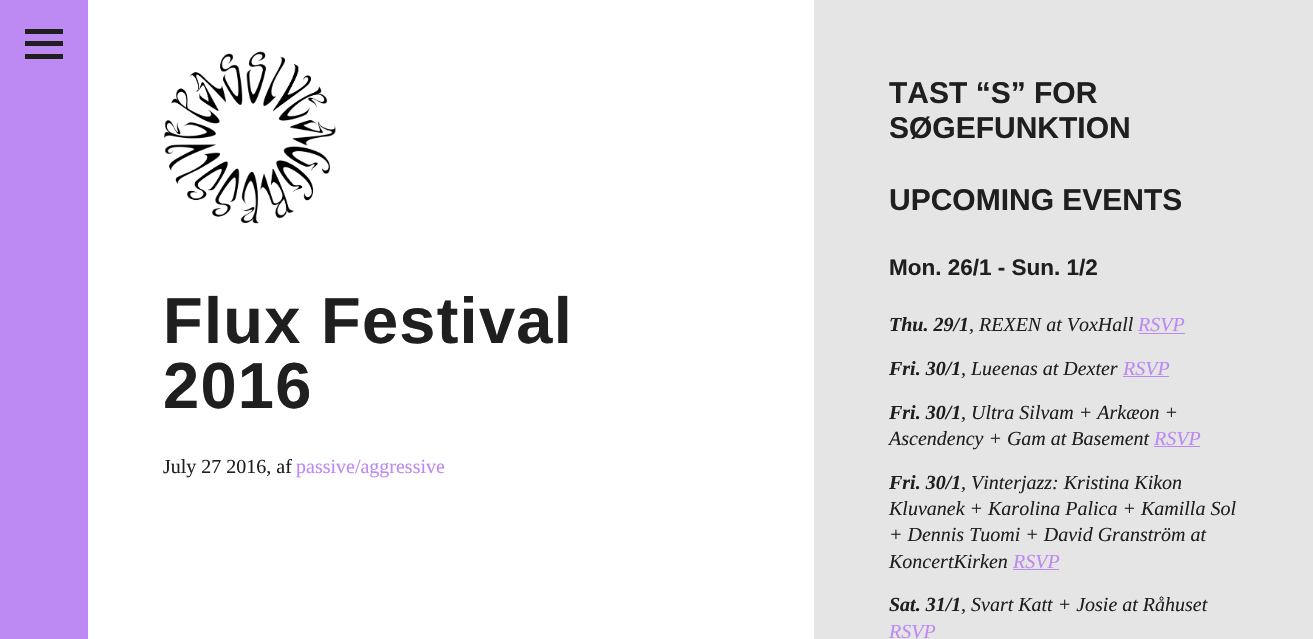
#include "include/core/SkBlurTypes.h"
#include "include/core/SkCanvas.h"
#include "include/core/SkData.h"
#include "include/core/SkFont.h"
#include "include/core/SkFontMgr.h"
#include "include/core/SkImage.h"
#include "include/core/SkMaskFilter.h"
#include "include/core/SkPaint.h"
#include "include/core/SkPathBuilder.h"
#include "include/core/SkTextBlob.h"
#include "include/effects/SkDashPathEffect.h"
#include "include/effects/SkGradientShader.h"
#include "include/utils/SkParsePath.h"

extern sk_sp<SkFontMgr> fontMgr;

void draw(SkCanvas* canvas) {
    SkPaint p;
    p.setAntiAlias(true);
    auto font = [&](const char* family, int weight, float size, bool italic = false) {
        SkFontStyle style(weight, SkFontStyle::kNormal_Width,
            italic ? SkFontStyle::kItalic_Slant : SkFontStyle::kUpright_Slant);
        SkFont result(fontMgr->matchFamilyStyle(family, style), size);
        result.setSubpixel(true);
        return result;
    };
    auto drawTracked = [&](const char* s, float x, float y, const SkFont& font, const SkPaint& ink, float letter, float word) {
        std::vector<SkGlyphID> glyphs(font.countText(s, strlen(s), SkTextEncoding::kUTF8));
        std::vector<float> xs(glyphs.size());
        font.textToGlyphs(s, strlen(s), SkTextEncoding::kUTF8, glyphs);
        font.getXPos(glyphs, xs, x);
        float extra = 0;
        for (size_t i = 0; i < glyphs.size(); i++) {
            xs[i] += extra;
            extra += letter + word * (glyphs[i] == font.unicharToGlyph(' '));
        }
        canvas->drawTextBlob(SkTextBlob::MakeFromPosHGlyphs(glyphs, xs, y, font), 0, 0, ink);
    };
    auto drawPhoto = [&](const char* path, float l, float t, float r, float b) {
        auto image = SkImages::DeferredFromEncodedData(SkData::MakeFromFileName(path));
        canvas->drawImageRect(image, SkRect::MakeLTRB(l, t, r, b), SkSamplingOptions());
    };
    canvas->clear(0xFFFFFFFF);
    {
        const struct { float l, t, r, b; SkColor color; } items[] = {
            {0, 0, 88, 639, 0xFFBD89F2},
            {25, 41, 63, 46, 0xFF1F1F1F},
            {25, 29, 63, 34, 0xFF1F1F1F},
            {25, 54, 63, 59, 0xFF1F1F1F},
        };
        for (auto [l, t, r, b, color] : items) {
            p.setColor(color);
            canvas->drawRect(SkRect::MakeLTRB(l, t, r, b), p);
        }
    }
    drawPhoto("media/1.png", 164, 51, 336, 224);
    auto font1 = font("Liberation Sans", 700, 65);
    drawTracked("Flux Festival", 163, 343, font1, p, 1.25f, 0);
    drawTracked("2016", 163, 408, font1, p, 1.25f, 0);
    auto font2 = font("Liberation Serif", 400, 20);
    canvas->drawString("July 27 2016, af", 163, 473, font2, p);
    p.setColor(0xFFBD89F2);
    canvas->drawString("passive/aggressive", 296, 473, font2, p);
    p.setColor(0xFFE5E5E5);
    canvas->drawRect(SkRect::MakeLTRB(814, 0, 1313, 639), p);
    auto font3 = font("Liberation Sans", 700, 30);
    p.setColor(0xFF1F1F1F);
    {
        const struct { const char* s; float x, y; } items[] = {
            {"TAST “S” FOR", 889, 103},
            {"SØGEFUNKTION", 889, 138},
            {"UPCOMING EVENTS", 889, 210},
        };
        for (auto [s, x, y] : items) {
            canvas->drawString(s, x, y, font3, p);
        }
    }
    auto font4 = font("Liberation Sans", 700, 22.5f);
    canvas->drawString("Mon. 26/1 - Sun. 1/2", 889, 275, font4, p);
    auto font5 = font("Liberation Serif", 700, 20, true);
    canvas->drawString("Thu. 29/1", 889, 331, font5, p);
    auto font6 = font("Liberation Serif", 400, 20, true);
    canvas->drawString(", REXEN at VoxHall", 969, 331, font6, p);
    p.setColor(0xFFBD89F2);
    canvas->drawString("RSVP", 1138, 331, font6, p);
    canvas->drawRect(SkRect::MakeLTRB(1139, 333, 1185, 334), p);
    p.setColor(0xFF1F1F1F);
    canvas->drawString("Fri. 30/1", 889, 375, font5, p);
    canvas->drawString(", Lueenas at Dexter", 961, 375, font6, p);
    p.setColor(0xFFBD89F2);
    canvas->drawString("RSVP", 1123, 375, font6, p);
    canvas->drawRect(SkRect::MakeLTRB(1123, 376, 1169, 377), p);
    p.setColor(0xFF1F1F1F);
    canvas->drawString("Fri. 30/1", 889, 419, font5, p);
    canvas->drawString(", Ultra Silvam + Arkæon +", 961, 419, font6, p);
    canvas->drawString("Ascendency + Gam at Basement", 889, 445, font6, p);
    p.setColor(0xFFBD89F2);
    canvas->drawString("RSVP", 1154, 445, font6, p);
    canvas->drawRect(SkRect::MakeLTRB(1154, 446, 1200, 447), p);
    p.setColor(0xFF1F1F1F);
    canvas->drawString("Fri. 30/1", 889, 489, font5, p);
    {
        const struct { const char* s; float x, y; } items[] = {
            {", Vinterjazz: Kristina Kikon", 961, 489},
            {"Kluvanek + Karolina Palica + Kamilla Sol", 889, 515},
            {"+ Dennis Tuomi + David Granström at", 889, 541},
            {"KoncertKirken", 889, 568},
        };
        for (auto [s, x, y] : items) {
            canvas->drawString(s, x, y, font6, p);
        }
    }
    p.setColor(0xFFBD89F2);
    canvas->drawString("RSVP", 1013, 568, font6, p);
    canvas->drawRect(SkRect::MakeLTRB(1013, 569, 1059, 570), p);
    p.setColor(0xFF1F1F1F);
    canvas->drawString("Sat. 31/1", 889, 611, font5, p);
    canvas->drawString(", Svart Katt + Josie at Råhuset", 961, 611, font6, p);
    p.setColor(0xFFBD89F2);
    canvas->drawString("RSVP", 889, 638, font6, p);
}
